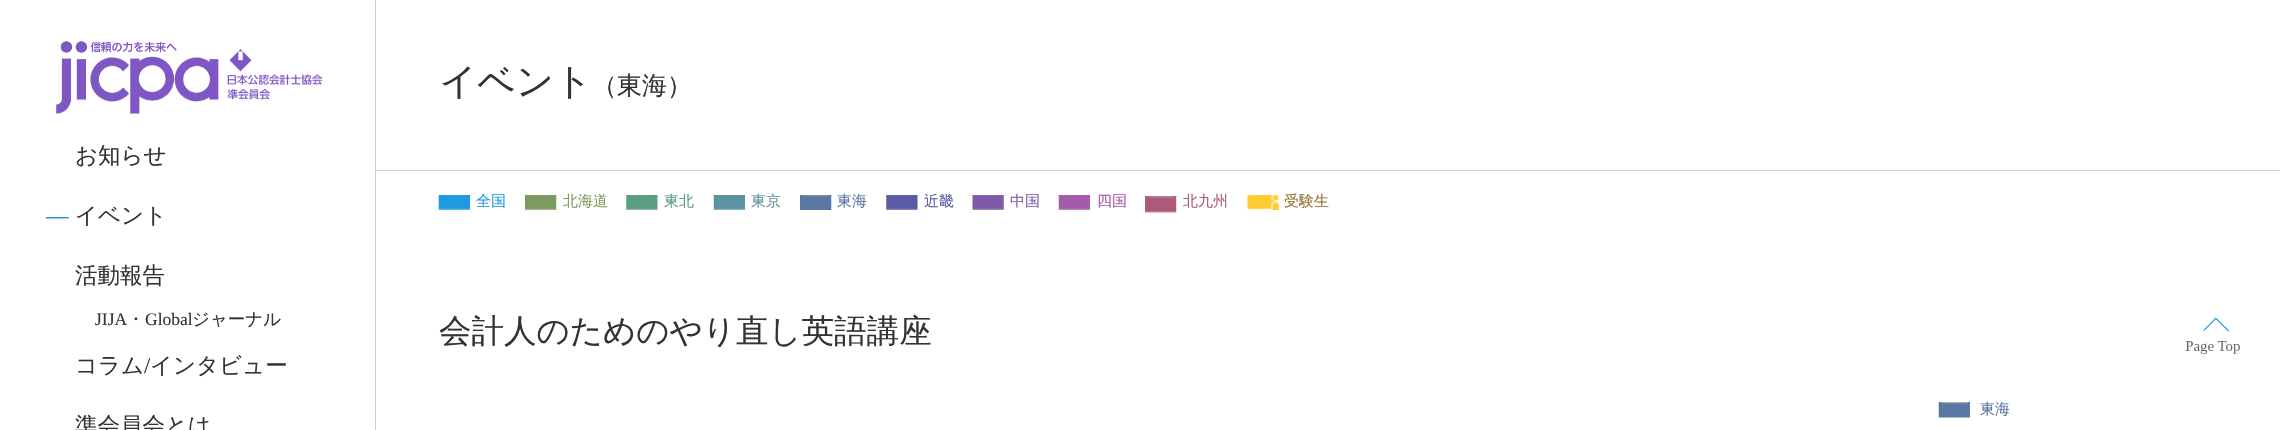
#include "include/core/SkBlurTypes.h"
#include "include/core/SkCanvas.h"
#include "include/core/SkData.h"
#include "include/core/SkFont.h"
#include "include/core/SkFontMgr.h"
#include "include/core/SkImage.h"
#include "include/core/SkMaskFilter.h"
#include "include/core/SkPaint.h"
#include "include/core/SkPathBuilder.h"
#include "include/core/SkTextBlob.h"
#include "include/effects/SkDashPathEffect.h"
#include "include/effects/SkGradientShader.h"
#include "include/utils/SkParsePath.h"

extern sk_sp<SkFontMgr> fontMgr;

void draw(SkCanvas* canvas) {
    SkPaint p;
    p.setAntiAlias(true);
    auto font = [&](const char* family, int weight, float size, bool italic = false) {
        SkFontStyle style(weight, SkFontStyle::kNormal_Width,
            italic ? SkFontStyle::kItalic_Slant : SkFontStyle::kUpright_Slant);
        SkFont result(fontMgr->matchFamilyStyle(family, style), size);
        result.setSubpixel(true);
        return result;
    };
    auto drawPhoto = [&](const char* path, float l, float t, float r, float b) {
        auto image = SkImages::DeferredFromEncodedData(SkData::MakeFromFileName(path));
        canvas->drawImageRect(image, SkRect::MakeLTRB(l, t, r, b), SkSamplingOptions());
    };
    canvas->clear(0xFFFFFFFF);
    drawPhoto("media/1.png", 56, 41, 323, 114);
    auto font1 = font("WenQuanYi Zen Hei", 500, 22.5f);
    p.setColor(0xFF333333);
    canvas->drawString("お知らせ", 75, 163, font1, p);
    auto font2 = font("Liberation Serif", 400, 22.5f);
    p.setColor(0xFF0081CC);
    canvas->drawString("―", 46, 223, font2, p);
    p.setColor(0xFF333333);
    canvas->drawString("イベント", 75, 223, font1, p);
    canvas->drawString("活動報告", 75, 283, font1, p);
    auto font3 = font("Liberation Serif", 400, 17.5f);
    canvas->drawString("JIJA", 95, 325, font3, p);
    auto font4 = font("WenQuanYi Zen Hei", 500, 17.5f);
    canvas->drawString("・", 127, 325, font4, p);
    canvas->drawString("Global", 145, 325, font3, p);
    canvas->drawString("ジャーナル", 192, 325, font4, p);
    canvas->drawString("コラム", 75, 373, font1, p);
    canvas->drawString("/", 144, 373, font2, p);
    canvas->drawString("インタビュー", 150, 373, font1, p);
    canvas->drawString("準会員会とは", 75, 433, font1, p);
    p.setColor(0xFFCCCCCC);
    canvas->drawRect(SkRect::MakeLTRB(375, 0, 376, 430), p);
    canvas->drawRect(SkRect::MakeLTRB(376, 170, 2280, 171), p);
    auto font5 = font("WenQuanYi Zen Hei", 500, 37.5f);
    p.setColor(0xFF333333);
    canvas->drawString("イベント", 439, 94, font5, p);
    auto font6 = font("WenQuanYi Zen Hei", 500, 25);
    canvas->drawString("（東海）", 592, 94, font6, p);
    drawPhoto("media/2.png", 438, 195, 470, 210);
    auto font7 = font("WenQuanYi Zen Hei", 500, 15);
    p.setColor(0xFF1E9BE0);
    canvas->drawString("全国", 476, 206, font7, p);
    drawPhoto("media/3.png", 525, 195, 557, 210);
    p.setColor(0xFF7C9B5C);
    canvas->drawString("北海道", 563, 206, font7, p);
    drawPhoto("media/4.png", 626, 195, 658, 210);
    p.setColor(0xFF5C9E80);
    canvas->drawString("東北", 664, 206, font7, p);
    drawPhoto("media/5.png", 713, 195, 745, 210);
    p.setColor(0xFF5C93A0);
    canvas->drawString("東京", 751, 206, font7, p);
    drawPhoto("media/6.png", 800, 195, 832, 210);
    p.setColor(0xFF5B77A3);
    canvas->drawString("東海", 837, 206, font7, p);
    drawPhoto("media/7.png", 886, 195, 918, 210);
    p.setColor(0xFF5B5BA5);
    canvas->drawString("近畿", 924, 206, font7, p);
    drawPhoto("media/8.png", 972, 195, 1004, 210);
    p.setColor(0xFF7E5BA8);
    canvas->drawString("中国", 1010, 206, font7, p);
    drawPhoto("media/9.png", 1058, 195, 1090, 210);
    p.setColor(0xFFA45BAA);
    canvas->drawString("四国", 1097, 206, font7, p);
    drawPhoto("media/10.png", 1145, 196, 1177, 213);
    p.setColor(0xFFAD5A7C);
    canvas->drawString("北九州", 1183, 206, font7, p);
    drawPhoto("media/11.png", 1247, 195, 1279, 210);
    p.setColor(0xFF956D30);
    canvas->drawString("受験生", 1284, 206, font7, p);
    auto font8 = font("WenQuanYi Zen Hei", 500, 32.5f);
    p.setColor(0xFF333333);
    canvas->drawString("会計人のためのやり直し英語講座", 439, 342, font8, p);
    drawPhoto("media/12.png", 1938, 402, 1970, 418);
    p.setColor(0xFF5B77A3);
    canvas->drawString("東海", 1980, 414, font7, p);
    drawPhoto("media/13.png", 2185, 317, 2240, 354);
}
